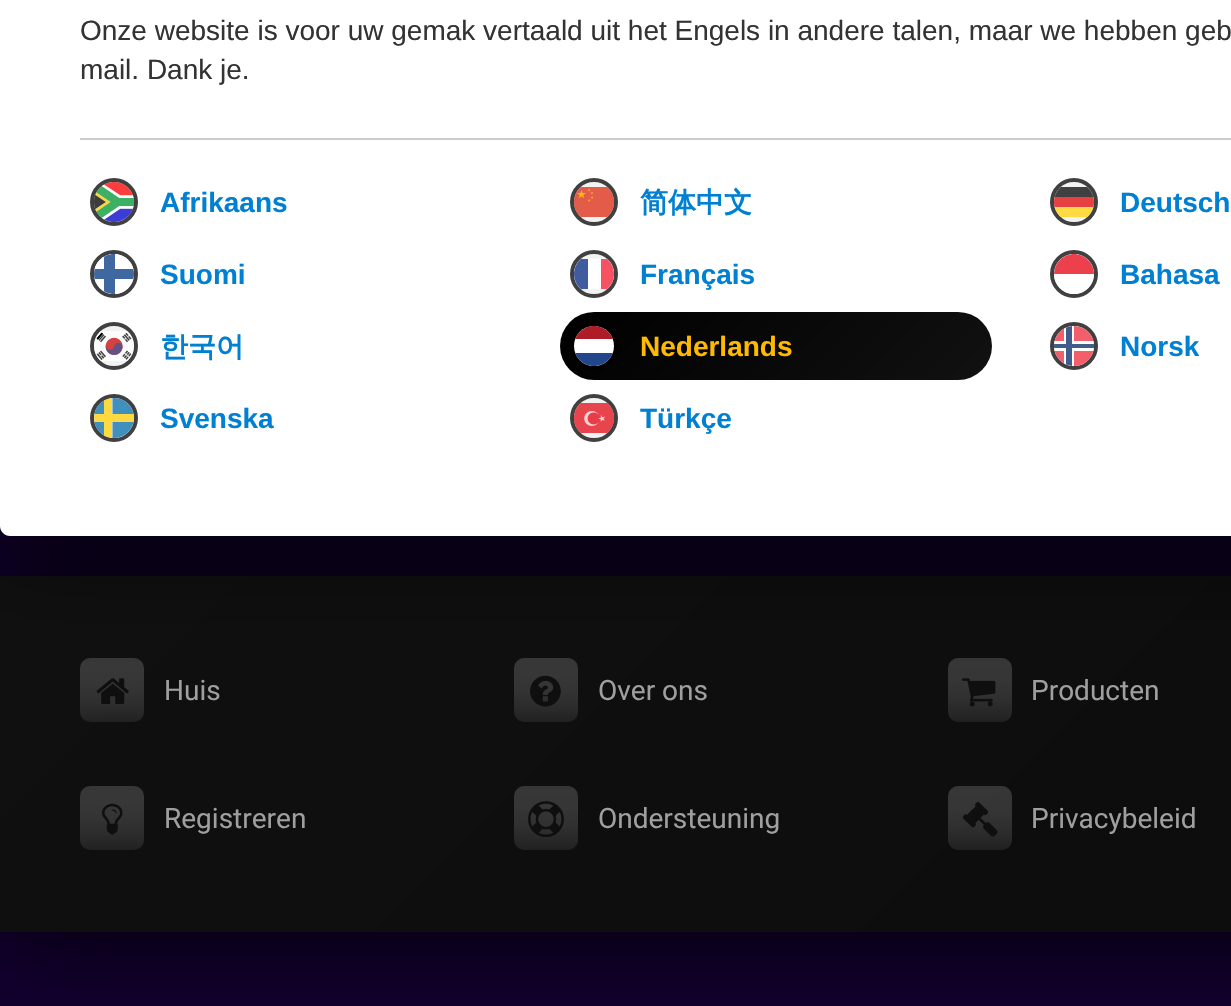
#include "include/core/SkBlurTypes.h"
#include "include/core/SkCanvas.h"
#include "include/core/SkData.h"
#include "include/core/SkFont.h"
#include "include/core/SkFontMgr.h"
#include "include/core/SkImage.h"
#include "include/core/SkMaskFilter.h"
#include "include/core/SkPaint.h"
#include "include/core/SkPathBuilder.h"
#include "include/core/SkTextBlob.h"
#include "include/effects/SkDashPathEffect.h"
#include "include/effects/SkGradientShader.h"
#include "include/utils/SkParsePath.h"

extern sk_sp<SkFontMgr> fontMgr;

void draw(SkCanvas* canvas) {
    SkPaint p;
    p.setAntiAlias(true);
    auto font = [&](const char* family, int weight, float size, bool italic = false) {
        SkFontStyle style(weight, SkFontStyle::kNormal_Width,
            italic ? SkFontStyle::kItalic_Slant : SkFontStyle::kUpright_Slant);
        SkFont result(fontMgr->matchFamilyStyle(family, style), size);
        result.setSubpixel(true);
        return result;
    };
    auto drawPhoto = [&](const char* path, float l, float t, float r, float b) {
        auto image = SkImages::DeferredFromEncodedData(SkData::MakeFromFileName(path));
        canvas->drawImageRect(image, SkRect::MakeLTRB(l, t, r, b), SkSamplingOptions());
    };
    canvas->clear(0xFF12002F);
    p.setColor(0xF2000000);
    p.setMaskFilter(SkMaskFilter::MakeBlur(kNormal_SkBlurStyle, 50));
    canvas->drawRect(SkRect::MakeLTRB(0, 576, 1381, 932), p);
    p.setMaskFilter(nullptr);
    {
        const SkColor colors[] = {0xFF101010, 0xFF0A0A0A};
        const float stops[] = {0, 1};
        const SkPoint ends[] = {{551, 25}, {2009, 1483}};
        p.setShader(SkGradientShader::MakeLinear(ends, colors, stops, 2, SkTileMode::kClamp));
        p.setAlpha(255);
    }
    canvas->drawRect(SkRect::MakeLTRB(0, 576, 1231, 932), p);
    p.setShader(nullptr);
    p.setColor(0xF2000000);
    p.setMaskFilter(SkMaskFilter::MakeBlur(kNormal_SkBlurStyle, 50));
    canvas->drawRoundRect(SkRect::MakeLTRB(0, -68, 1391, 536), 10, 10, p);
    p.setMaskFilter(nullptr);
    p.setColor(0xFFFFFFFF);
    canvas->drawPath(SkPathBuilder().moveTo(10, -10).lineTo(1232, -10).lineTo(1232, 536).lineTo(10, 536).cubicTo(4.5f, 536, 0, 531.5f, 0, 526).lineTo(0, 0).cubicTo(0, -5.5f, 4.5f, -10, 10, -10).close().detach(), p);
    auto font1 = font("Liberation Sans", 400, 28);
    p.setColor(0xFF333333);
    canvas->drawString("Onze website is voor uw gemak vertaald uit het Engels in andere talen, maar we hebben geb", 80, 40, font1, p);
    canvas->drawString("mail. Dank je.", 80, 79, font1, p);
    p.setColor(0xFFCCCCCC);
    canvas->drawRect(SkRect::MakeLTRB(80, 138, 1231, 140), p);
    p.setColor(0xFFF2F2F2);
    canvas->drawCircle(114, 202, 22, p);
    p.setStyle(SkPaint::kStroke_Style);
    p.setStrokeWidth(4);
    p.setColor(0xFF404040);
    canvas->drawCircle(114, 202, 22, p);
    drawPhoto("media/1.png", 94, 182, 134, 222);
    auto font2 = font("Liberation Sans", 700, 28);
    p.setStyle(SkPaint::kFill_Style);
    p.setColor(0xFF0080D2);
    canvas->drawString("Afrikaans", 160, 212, font2, p);
    p.setColor(0xFFF2F2F2);
    canvas->drawCircle(594, 202, 22, p);
    p.setStyle(SkPaint::kStroke_Style);
    p.setColor(0xFF404040);
    canvas->drawCircle(594, 202, 22, p);
    drawPhoto("media/2.png", 574, 187, 614, 217);
    auto font3 = font("WenQuanYi Zen Hei", 700, 28);
    p.setStyle(SkPaint::kFill_Style);
    p.setColor(0xFF0080D2);
    canvas->drawString("简体中文", 640, 212, font3, p);
    p.setColor(0xFFF2F2F2);
    canvas->drawCircle(1074, 202, 22, p);
    p.setStyle(SkPaint::kStroke_Style);
    p.setColor(0xFF404040);
    canvas->drawCircle(1074, 202, 22, p);
    canvas->save();
    canvas->clipPath(SkPathBuilder().moveTo(1074, 182).cubicTo(1085, 182, 1094, 191, 1094, 202).cubicTo(1094, 213, 1085, 222, 1074, 222).cubicTo(1063, 222, 1054, 213, 1054, 202).cubicTo(1054, 191, 1063, 182, 1074, 182).close().detach(), true);
    p.setStyle(SkPaint::kFill_Style);
    {
        const struct { float l, t, r, b; SkColor color; } items[] = {
            {1054, 207, 1094, 217, 0xFFFFDA40},
            {1054, 187, 1094, 197, 0xFF404040},
            {1054, 197, 1094, 207, 0xFFE64040},
        };
        for (auto [l, t, r, b, color] : items) {
            p.setColor(color);
            canvas->drawRect(SkRect::MakeLTRB(l, t, r, b), p);
        }
    }
    canvas->restore();
    p.setColor(0xFF0080D2);
    canvas->drawString("Deutsch", 1120, 212, font2, p);
    p.setStyle(SkPaint::kStroke_Style);
    p.setColor(0xFF404040);
    canvas->drawCircle(114, 274, 22, p);
    p.setStyle(SkPaint::kFill_Style);
    p.setColor(0xFFFFFFFF);
    canvas->drawCircle(114, 274, 20, p);
    canvas->save();
    canvas->clipPath(SkPathBuilder().moveTo(114, 254).cubicTo(125, 254, 134, 263, 134, 274).cubicTo(134, 285, 125, 294, 114, 294).cubicTo(103, 294, 94, 285, 94, 274).cubicTo(94, 263, 103, 254, 114, 254).close().detach(), true);
    p.setColor(0xFF4068A0);
    canvas->drawRect(SkRect::MakeLTRB(94, 269, 134, 279), p);
    canvas->drawRect(SkRect::MakeLTRB(104, 254, 115, 294), p);
    canvas->restore();
    p.setColor(0xFF0080D2);
    canvas->drawString("Suomi", 160, 284, font2, p);
    p.setColor(0xFFF2F2F2);
    canvas->drawCircle(594, 274, 22, p);
    p.setStyle(SkPaint::kStroke_Style);
    p.setColor(0xFF404040);
    canvas->drawCircle(594, 274, 22, p);
    canvas->save();
    canvas->clipPath(SkPathBuilder().moveTo(594, 254).cubicTo(605, 254, 614, 263, 614, 274).cubicTo(614, 285, 605, 294, 594, 294).cubicTo(583, 294, 574, 285, 574, 274).cubicTo(574, 263, 583, 254, 594, 254).close().detach(), true);
    p.setStyle(SkPaint::kFill_Style);
    {
        const struct { float l, t, r, b; SkColor color; } items[] = {
            {574, 259, 614, 289, 0xFFFFFFFF},
            {574, 259, 588, 289, 0xFF405C9F},
            {601, 259, 614, 289, 0xFFF65264},
        };
        for (auto [l, t, r, b, color] : items) {
            p.setColor(color);
            canvas->drawRect(SkRect::MakeLTRB(l, t, r, b), p);
        }
    }
    canvas->restore();
    p.setColor(0xFF0080D2);
    canvas->drawString("Français", 640, 284, font2, p);
    p.setColor(0xFFF2F2F2);
    canvas->drawCircle(1074, 274, 22, p);
    p.setStyle(SkPaint::kStroke_Style);
    p.setColor(0xFF404040);
    canvas->drawCircle(1074, 274, 22, p);
    canvas->save();
    canvas->clipPath(SkPathBuilder().moveTo(1074, 254).cubicTo(1085, 254, 1094, 263, 1094, 274).cubicTo(1094, 285, 1085, 294, 1074, 294).cubicTo(1063, 294, 1054, 285, 1054, 274).cubicTo(1054, 263, 1063, 254, 1074, 254).close().detach(), true);
    p.setStyle(SkPaint::kFill_Style);
    p.setColor(0xFFED404D);
    canvas->drawPath(SkPathBuilder().moveTo(1074, 254).cubicTo(1085, 254, 1094, 263, 1094, 274).lineTo(1094, 275).lineTo(1054, 275).lineTo(1054, 274).cubicTo(1054, 263, 1063, 254, 1074, 254).close().detach(), p);
    canvas->restore();
    p.setColor(0xFFFFFFFF);
    canvas->drawPath(SkPathBuilder().moveTo(1054, 274).lineTo(1094, 274).cubicTo(1094, 285, 1085, 294, 1074, 294).cubicTo(1063, 294, 1054, 285, 1054, 274).close().detach(), p);
    p.setColor(0xFF0080D2);
    canvas->drawString("Bahasa", 1120, 284, font2, p);
    p.setColor(0xFFF2F2F2);
    canvas->drawCircle(114, 346, 22, p);
    p.setStyle(SkPaint::kStroke_Style);
    p.setColor(0xFF404040);
    canvas->drawCircle(114, 346, 22, p);
    drawPhoto("media/3.png", 94, 331, 134, 361);
    p.setStyle(SkPaint::kFill_Style);
    p.setColor(0xFF0080D2);
    canvas->drawString("한국어", 160, 356, font3, p);
    {
        const SkColor colors[] = {0xFF000000, 0xFF111111};
        const float stops[] = {0, 1};
        const SkPoint ends[] = {{651, 221}, {901, 471}};
        p.setShader(SkGradientShader::MakeLinear(ends, colors, stops, 2, SkTileMode::kClamp));
        p.setAlpha(255);
    }
    canvas->drawRoundRect(SkRect::MakeLTRB(560, 312, 992, 380), 34, 34, p);
    p.setStyle(SkPaint::kStroke_Style);
    p.setShader(nullptr);
    p.setColor(0xFF000000);
    canvas->drawCircle(594, 346, 22, p);
    p.setStyle(SkPaint::kFill_Style);
    p.setColor(0xFFFFFFFF);
    canvas->drawCircle(594, 346, 20, p);
    canvas->save();
    canvas->clipPath(SkPathBuilder().moveTo(594, 326).cubicTo(605, 326, 614, 335, 614, 346).cubicTo(614, 357, 605, 366, 594, 366).cubicTo(583, 366, 574, 357, 574, 346).cubicTo(574, 335, 583, 326, 594, 326).close().detach(), true);
    p.setColor(0xFF21468B);
    canvas->drawRect(SkRect::MakeLTRB(575, 353, 613, 366), p);
    p.setColor(0xFFAE1C28);
    canvas->drawRect(SkRect::MakeLTRB(575, 326, 613, 339), p);
    canvas->restore();
    p.setColor(0xFFFFBA00);
    canvas->drawString("Nederlands", 640, 356, font2, p);
    p.setStyle(SkPaint::kStroke_Style);
    p.setColor(0xFF404040);
    canvas->drawCircle(1074, 346, 22, p);
    p.setStyle(SkPaint::kFill_Style);
    p.setColor(0xFFF25F6B);
    canvas->drawCircle(1074, 346, 20, p);
    canvas->save();
    canvas->clipPath(SkPathBuilder().moveTo(1074, 326).cubicTo(1085, 326, 1094, 335, 1094, 346).cubicTo(1094, 357, 1085, 366, 1074, 366).cubicTo(1063, 366, 1054, 357, 1054, 346).cubicTo(1054, 335, 1063, 326, 1074, 326).close().detach(), true);
    {
        const struct { float l, t, r, b; SkColor color; } items[] = {
            {1064, 326, 1074, 366, 0xFFFFFFFF},
            {1054, 341, 1094, 351, 0xFFFFFFFF},
            {1066, 326, 1072, 366, 0xFF405C8B},
            {1054, 344, 1094, 348, 0xFF405C8B},
        };
        for (auto [l, t, r, b, color] : items) {
            p.setColor(color);
            canvas->drawRect(SkRect::MakeLTRB(l, t, r, b), p);
        }
    }
    canvas->restore();
    p.setColor(0xFF0080D2);
    canvas->drawString("Norsk", 1120, 356, font2, p);
    p.setColor(0xFFF2F2F2);
    canvas->drawCircle(114, 418, 22, p);
    p.setStyle(SkPaint::kStroke_Style);
    p.setColor(0xFF404040);
    canvas->drawCircle(114, 418, 22, p);
    p.setStyle(SkPaint::kFill_Style);
    p.setColor(0xFF408FBD);
    canvas->drawPath(SkPathBuilder(SkPathFillType::kEvenOdd).moveTo(104.5f, 400.5f).cubicTo(99.5f, 403, 95.5f, 408, 94.5f, 414).lineTo(104.5f, 414).close().moveTo(104.5f, 435.5f).lineTo(104.5f, 422).lineTo(94.5f, 422).cubicTo(95.5f, 428, 99.5f, 433, 104.5f, 435.5f).close().detach(), p);
    p.setColor(0xFFFED940);
    canvas->drawPath(SkPathBuilder().moveTo(94.5f, 422).cubicTo(94, 419.5f, 94, 416.5f, 94.5f, 414).lineTo(105, 414).lineTo(105, 422).close().detach(), p);
    canvas->drawPath(SkPathBuilder().moveTo(112, 398).cubicTo(109, 398.5f, 106.5f, 399.5f, 104, 400.5f).lineTo(104, 435.5f).cubicTo(106.5f, 436.5f, 109, 437.5f, 112, 438).close().moveTo(112, 414).lineTo(112, 422).lineTo(133.5f, 422).cubicTo(134, 419.5f, 134, 416.5f, 133.5f, 414).close().detach(), p);
    p.setColor(0xFF408FBD);
    canvas->drawPath(SkPathBuilder(SkPathFillType::kEvenOdd).moveTo(114, 398).lineTo(112.5f, 398).lineTo(112.5f, 414).lineTo(133.5f, 414).cubicTo(132, 405, 124, 398, 114, 398).close().moveTo(112.5f, 422).lineTo(133.5f, 422).cubicTo(131.5f, 432, 122.5f, 438.5f, 112.5f, 438).close().detach(), p);
    p.setColor(0xFF0080D2);
    canvas->drawString("Svenska", 160, 428, font2, p);
    p.setColor(0xFFF2F2F2);
    canvas->drawCircle(594, 418, 22, p);
    p.setStyle(SkPaint::kStroke_Style);
    p.setColor(0xFF404040);
    canvas->drawCircle(594, 418, 22, p);
    drawPhoto("media/4.png", 574, 403, 614, 433);
    p.setStyle(SkPaint::kFill_Style);
    p.setColor(0xFF0080D2);
    canvas->drawString("Türkçe", 640, 428, font2, p);
    {
        const SkColor colors[] = {0x80323232, 0x40AAAAAA};
        const float stops[] = {0, 1};
        const SkPoint ends[] = {{112, 722}, {112, 658}};
        p.setShader(SkGradientShader::MakeLinear(ends, colors, stops, 2, SkTileMode::kClamp));
        p.setAlpha(255);
    }
    canvas->drawRoundRect(SkRect::MakeLTRB(80, 658, 144, 722), 10, 10, p);
    drawPhoto("media/5.png", 96, 678, 129, 704);
    auto font4 = font("Roboto", 400, 28);
    p.setShader(nullptr);
    p.setColor(0xFF9F9F9F);
    canvas->drawString("Huis", 164, 700, font4, p);
    {
        const SkColor colors[] = {0x80323232, 0x40AAAAAA};
        const float stops[] = {0, 1};
        const SkPoint ends[] = {{546, 722}, {546, 658}};
        p.setShader(SkGradientShader::MakeLinear(ends, colors, stops, 2, SkTileMode::kClamp));
        p.setAlpha(255);
    }
    canvas->drawRoundRect(SkRect::MakeLTRB(514, 658, 578, 722), 10, 10, p);
    drawPhoto("media/6.png", 530, 675, 561, 707);
    p.setShader(nullptr);
    p.setColor(0xFF9F9F9F);
    canvas->drawString("Over ons", 598, 700, font4, p);
    {
        const SkColor colors[] = {0x80323232, 0x40AAAAAA};
        const float stops[] = {0, 1};
        const SkPoint ends[] = {{980, 722}, {980, 658}};
        p.setShader(SkGradientShader::MakeLinear(ends, colors, stops, 2, SkTileMode::kClamp));
        p.setAlpha(255);
    }
    canvas->drawRoundRect(SkRect::MakeLTRB(948, 658, 1012, 722), 10, 10, p);
    drawPhoto("media/7.png", 962, 678, 996, 707);
    p.setShader(nullptr);
    p.setColor(0xFF9F9F9F);
    canvas->drawString("Producten", 1031, 700, font4, p);
    {
        const SkColor colors[] = {0x80323232, 0x40AAAAAA};
        const float stops[] = {0, 1};
        const SkPoint ends[] = {{112, 850}, {112, 786}};
        p.setShader(SkGradientShader::MakeLinear(ends, colors, stops, 2, SkTileMode::kClamp));
        p.setAlpha(255);
    }
    canvas->drawRoundRect(SkRect::MakeLTRB(80, 786, 144, 850), 10, 10, p);
    drawPhoto("media/8.png", 102, 803, 123, 835);
    p.setShader(nullptr);
    p.setColor(0xFF9F9F9F);
    canvas->drawString("Registreren", 164, 828, font4, p);
    {
        const SkColor colors[] = {0x80323232, 0x40AAAAAA};
        const float stops[] = {0, 1};
        const SkPoint ends[] = {{546, 850}, {546, 786}};
        p.setShader(SkGradientShader::MakeLinear(ends, colors, stops, 2, SkTileMode::kClamp));
        p.setAlpha(255);
    }
    canvas->drawRoundRect(SkRect::MakeLTRB(514, 786, 578, 850), 10, 10, p);
    drawPhoto("media/9.png", 528, 801, 564, 837);
    p.setShader(nullptr);
    p.setColor(0xFF9F9F9F);
    canvas->drawString("Ondersteuning", 598, 828, font4, p);
    {
        const SkColor colors[] = {0x80323232, 0x40AAAAAA};
        const float stops[] = {0, 1};
        const SkPoint ends[] = {{980, 850}, {980, 786}};
        p.setShader(SkGradientShader::MakeLinear(ends, colors, stops, 2, SkTileMode::kClamp));
        p.setAlpha(255);
    }
    canvas->drawRoundRect(SkRect::MakeLTRB(948, 786, 1012, 850), 10, 10, p);
    drawPhoto("media/10.png", 962, 802, 998, 837);
    p.setShader(nullptr);
    p.setColor(0xFF9F9F9F);
    canvas->drawString("Privacybeleid", 1031, 828, font4, p);
}
